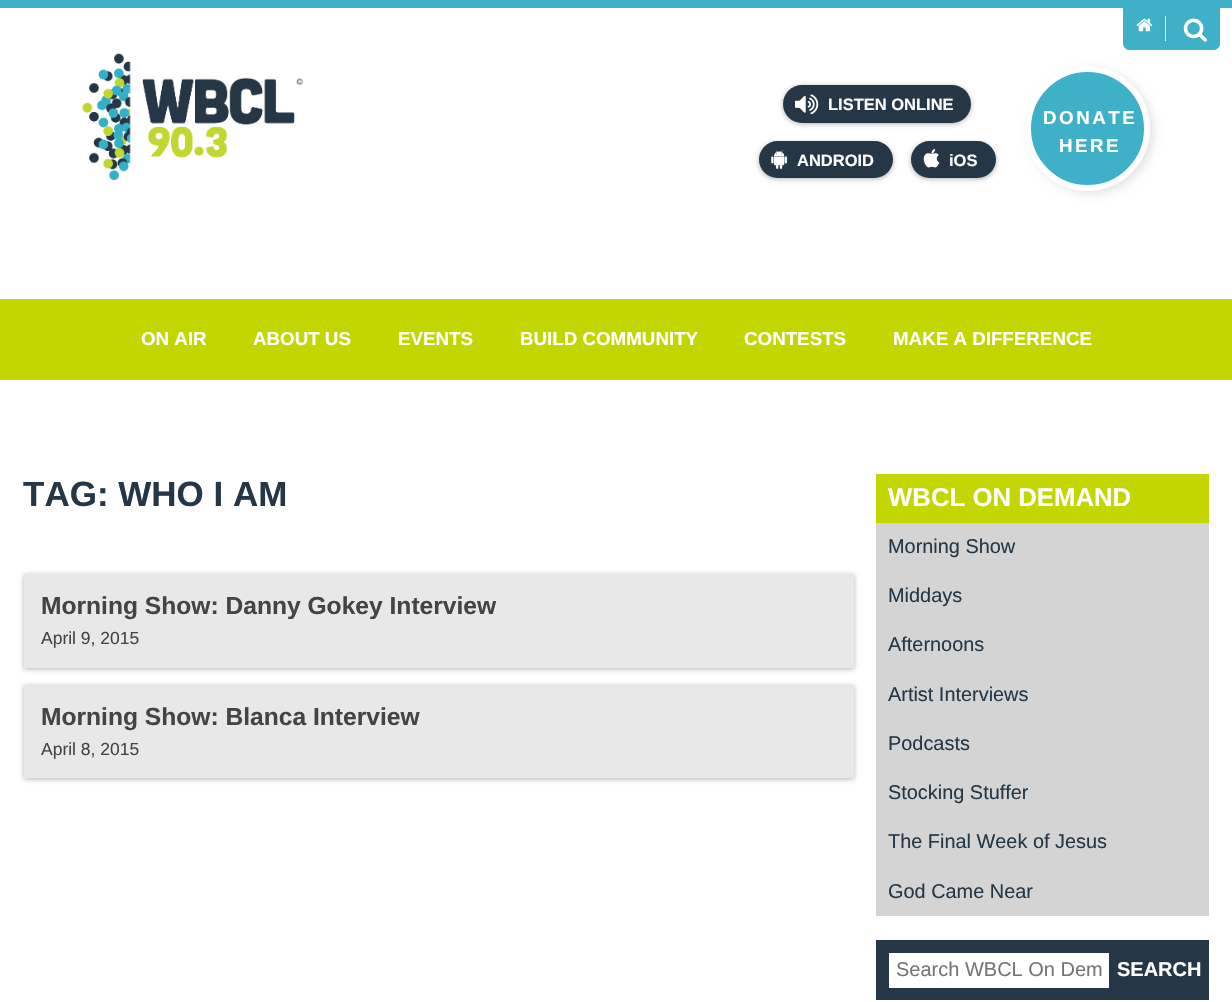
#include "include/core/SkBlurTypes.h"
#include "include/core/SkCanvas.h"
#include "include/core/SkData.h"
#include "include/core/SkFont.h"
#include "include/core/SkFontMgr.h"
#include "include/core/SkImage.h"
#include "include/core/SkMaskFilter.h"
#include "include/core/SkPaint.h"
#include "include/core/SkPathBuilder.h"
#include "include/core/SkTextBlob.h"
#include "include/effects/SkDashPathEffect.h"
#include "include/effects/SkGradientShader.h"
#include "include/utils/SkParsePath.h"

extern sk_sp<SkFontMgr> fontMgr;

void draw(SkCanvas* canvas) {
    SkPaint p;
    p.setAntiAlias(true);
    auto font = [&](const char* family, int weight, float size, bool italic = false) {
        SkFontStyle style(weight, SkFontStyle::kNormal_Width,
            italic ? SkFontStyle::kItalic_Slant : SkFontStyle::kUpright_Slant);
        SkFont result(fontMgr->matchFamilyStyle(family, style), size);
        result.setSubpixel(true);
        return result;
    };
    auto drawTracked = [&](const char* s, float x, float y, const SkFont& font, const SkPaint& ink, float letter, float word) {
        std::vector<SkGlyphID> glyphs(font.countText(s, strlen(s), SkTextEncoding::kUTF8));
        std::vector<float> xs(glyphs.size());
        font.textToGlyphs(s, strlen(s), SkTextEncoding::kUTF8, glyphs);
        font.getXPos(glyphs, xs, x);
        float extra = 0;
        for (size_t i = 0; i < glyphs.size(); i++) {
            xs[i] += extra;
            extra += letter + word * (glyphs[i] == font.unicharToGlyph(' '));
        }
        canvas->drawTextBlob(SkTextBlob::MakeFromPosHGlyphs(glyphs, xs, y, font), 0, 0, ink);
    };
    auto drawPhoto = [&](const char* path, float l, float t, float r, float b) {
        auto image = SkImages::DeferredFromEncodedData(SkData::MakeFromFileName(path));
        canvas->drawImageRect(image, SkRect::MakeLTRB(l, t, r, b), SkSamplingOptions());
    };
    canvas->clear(0xFFFFFFFF);
    p.setColor(0xFF3EB1C8);
    canvas->drawRect(SkRect::MakeLTRB(0, 0, 1232, 8), p);
    canvas->drawPath(SkPathBuilder().moveTo(1123.5f, 8.5f).lineTo(1219.5f, 8.5f).lineTo(1219.5f, 44).cubicTo(1219.5f, 47, 1217, 49.5f, 1214, 49.5f).lineTo(1129, 49.5f).cubicTo(1126, 49.5f, 1123.5f, 47, 1123.5f, 44).close().detach(), p);
    p.setStyle(SkPaint::kStroke_Style);
    p.setStrokeWidth(1);
    canvas->drawPath(SkPathBuilder().moveTo(1123.5f, 8.5f).lineTo(1219.5f, 8.5f).lineTo(1219.5f, 44).cubicTo(1219.5f, 47, 1217, 49.5f, 1214, 49.5f).lineTo(1129, 49.5f).cubicTo(1126, 49.5f, 1123.5f, 47, 1123.5f, 44).close().detach(), p);
    drawPhoto("media/1.png", 1136, 18, 1153, 32);
    p.setStyle(SkPaint::kFill_Style);
    p.setColor(0xFFFFFFFF);
    canvas->drawRect(SkRect::MakeLTRB(1165, 16, 1166, 41), p);
    drawPhoto("media/2.png", 1183, 18, 1207, 42);
    drawPhoto("media/3.png", 82, 53, 303, 180);
    p.setColor(0x4D000000);
    p.setMaskFilter(SkMaskFilter::MakeBlur(kNormal_SkBlurStyle, 2.5f));
    canvas->drawRoundRect(SkRect::MakeLTRB(783, 86, 971, 124), 19, 19, p);
    p.setMaskFilter(nullptr);
    p.setColor(0xFF253746);
    canvas->drawRoundRect(SkRect::MakeLTRB(783, 85, 971, 123), 19, 19, p);
    drawPhoto("media/4.png", 795, 94, 819, 115);
    auto font1 = font("Liberation Sans", 700, 16.5f);
    p.setColor(0xFFFFFFFF);
    canvas->drawString("LISTEN ONLINE", 828, 110, font1, p);
    p.setColor(0x4D000000);
    p.setMaskFilter(SkMaskFilter::MakeBlur(kNormal_SkBlurStyle, 2.5f));
    canvas->drawRoundRect(SkRect::MakeLTRB(759, 143, 893, 179), 18, 18, p);
    p.setMaskFilter(nullptr);
    p.setColor(0xFF253746);
    canvas->drawRoundRect(SkRect::MakeLTRB(759, 141, 893, 178), 18.5f, 18.5f, p);
    drawPhoto("media/5.png", 771, 150, 787, 169);
    p.setColor(0xFFFFFFFF);
    canvas->drawString("ANDROID", 797, 166, font1, p);
    p.setColor(0x4D000000);
    p.setMaskFilter(SkMaskFilter::MakeBlur(kNormal_SkBlurStyle, 2.5f));
    canvas->drawRoundRect(SkRect::MakeLTRB(911, 143, 996, 179), 18, 18, p);
    p.setMaskFilter(nullptr);
    p.setColor(0xFF253746);
    canvas->drawRoundRect(SkRect::MakeLTRB(911, 141, 996, 178), 18.5f, 18.5f, p);
    drawPhoto("media/6.png", 923, 149, 940, 168);
    p.setColor(0xFFFFFFFF);
    canvas->drawString("iOS", 949, 166, font1, p);
    p.setColor(0x1A000000);
    p.setMaskFilter(SkMaskFilter::MakeBlur(kNormal_SkBlurStyle, 4.5f));
    canvas->drawRoundRect(SkRect::MakeLTRB(1029, 69, 1154, 194), 62.5f, 62.5f, p);
    p.setMaskFilter(nullptr);
    p.setColor(0xFF3EB1C8);
    canvas->drawCircle(1087.5f, 128.5f, 59.5f, p);
    p.setStyle(SkPaint::kStroke_Style);
    p.setStrokeWidth(6);
    p.setColor(0xFFFFFFFF);
    canvas->drawCircle(1087.5f, 128.5f, 59.5f, p);
    auto font2 = font("Liberation Sans", 700, 18.75f);
    p.setStyle(SkPaint::kFill_Style);
    drawTracked("DONATE", 1043, 124, font2, p, 2.5f, 0);
    drawTracked("HERE", 1059, 152, font2, p, 2.5f, 0);
    p.setColor(0xFFC4D600);
    canvas->drawRect(SkRect::MakeLTRB(0, 299, 1232, 380), p);
    p.setColor(0xFFFFFFFF);
    {
        const struct { const char* s; float x, y; } items[] = {
            {"ON AIR", 141, 345},
            {"ABOUT US", 253, 345},
            {"EVENTS", 398, 345},
            {"BUILD COMMUNITY", 520, 345},
            {"CONTESTS", 744, 345},
            {"MAKE A DIFFERENCE", 893, 345},
        };
        for (auto [s, x, y] : items) {
            canvas->drawString(s, x, y, font2, p);
        }
    }
    auto font3 = font("Liberation Sans", 700, 35);
    p.setColor(0xFF253746);
    canvas->drawString("TAG: WHO I AM", 23, 506, font3, p);
    p.setColor(0x4D000000);
    p.setMaskFilter(SkMaskFilter::MakeBlur(kNormal_SkBlurStyle, 2.5f));
    canvas->drawRect(SkRect::MakeLTRB(24, 575, 854, 669), p);
    p.setMaskFilter(nullptr);
    p.setColor(0xFFE8E8E8);
    canvas->drawRect(SkRect::MakeLTRB(24, 574, 854, 668), p);
    auto font4 = font("Liberation Sans", 700, 24.6f);
    p.setColor(0xFF444444);
    canvas->drawString("Morning Show: Danny Gokey Interview", 41, 614, font4, p);
    auto font5 = font("Liberation Sans", 400, 17.5f);
    canvas->drawString("April 9, 2015", 41, 644, font5, p);
    p.setColor(0x4D000000);
    p.setMaskFilter(SkMaskFilter::MakeBlur(kNormal_SkBlurStyle, 2.5f));
    canvas->drawRect(SkRect::MakeLTRB(24, 686, 854, 779), p);
    p.setMaskFilter(nullptr);
    p.setColor(0xFFE8E8E8);
    canvas->drawRect(SkRect::MakeLTRB(24, 685, 854, 778), p);
    p.setColor(0xFF444444);
    canvas->drawString("Morning Show: Blanca Interview", 41, 725, font4, p);
    canvas->drawString("April 8, 2015", 41, 755, font5, p);
    p.setColor(0xFFD4D4D4);
    canvas->drawRect(SkRect::MakeLTRB(876, 523, 1209, 916), p);
    p.setColor(0xFFC4D600);
    canvas->drawRect(SkRect::MakeLTRB(876, 474, 1209, 523), p);
    auto font6 = font("Liberation Sans", 700, 25.75f);
    p.setColor(0xFFFFFFFF);
    canvas->drawString("WBCL ON DEMAND", 888, 506, font6, p);
    auto font7 = font("Liberation Sans", 400, 19.9f);
    p.setColor(0xFF253746);
    {
        const struct { const char* s; float x, y; } items[] = {
            {"Morning Show", 888, 553},
            {"Middays", 888, 602},
            {"Afternoons", 888, 651},
            {"Artist Interviews", 888, 701},
            {"Podcasts", 888, 750},
            {"Stocking Stuffer", 888, 799},
            {"The Final Week of Jesus", 888, 848},
            {"God Came Near", 888, 898},
        };
        for (auto [s, x, y] : items) {
            canvas->drawString(s, x, y, font7, p);
        }
    }
    canvas->drawRect(SkRect::MakeLTRB(876, 940, 1209, 1000), p);
    p.setColor(0xFFFFFFFF);
    canvas->drawRect(SkRect::MakeLTRB(889, 953, 1109, 988), p);
    auto font8 = font("Liberation Sans", 400, 20);
    p.setColor(0xFF757575);
    canvas->drawString("Search WBCL On Dem", 896, 976, font8, p);
    auto font9 = font("Liberation Sans", 700, 20);
    p.setColor(0xFFFFFFFF);
    canvas->drawString("SEARCH", 1117, 976, font9, p);
}
